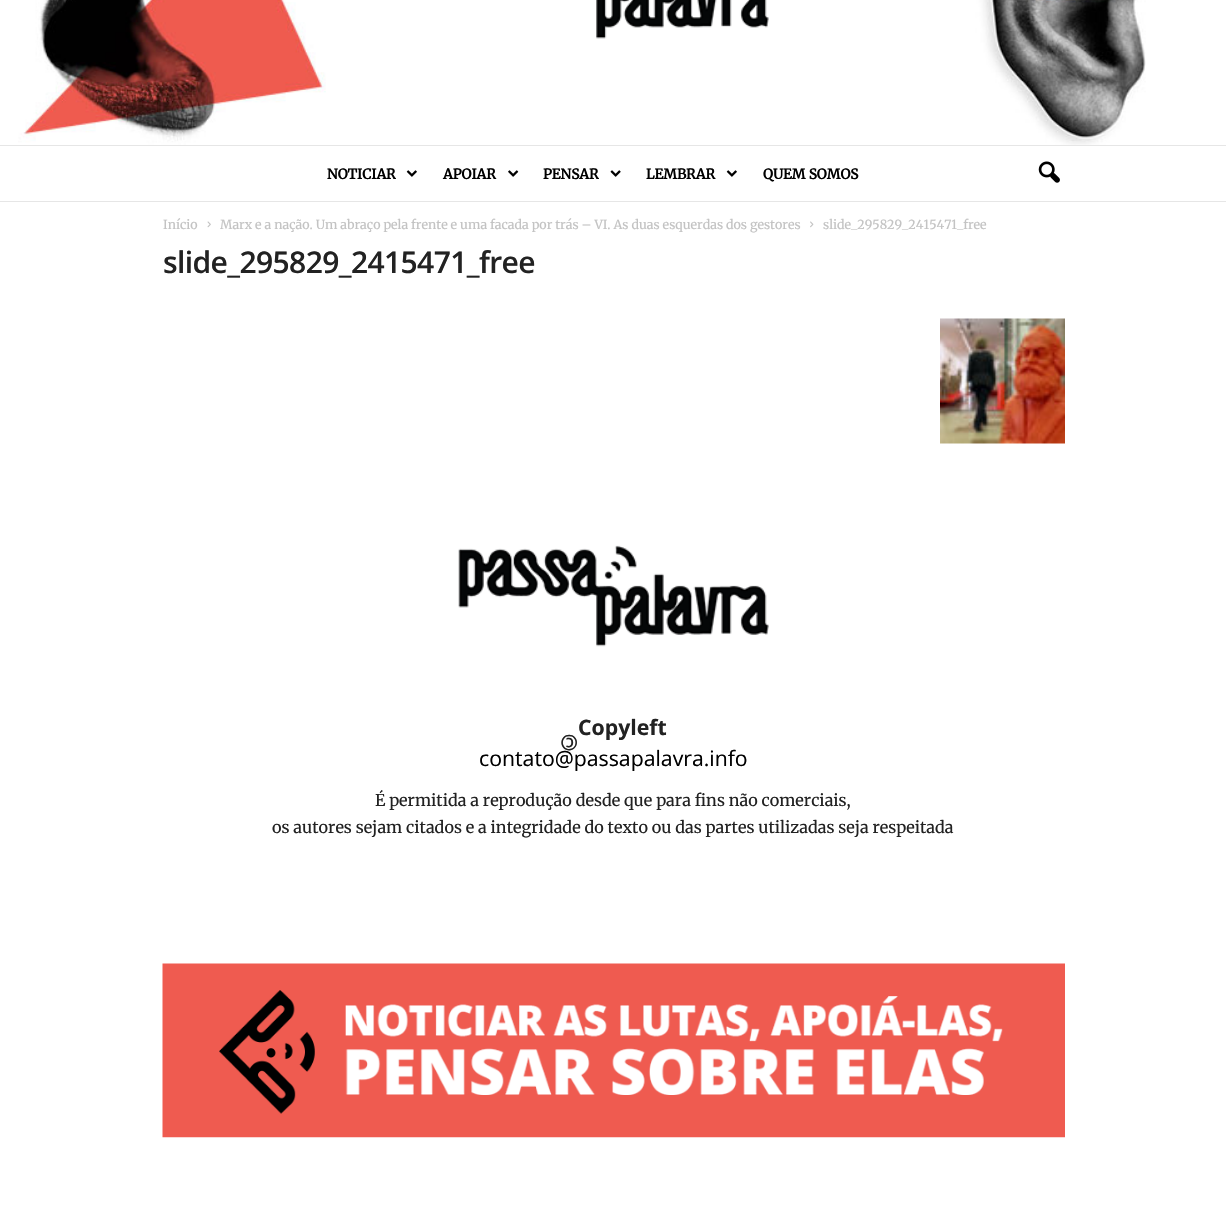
#include "include/core/SkBlurTypes.h"
#include "include/core/SkCanvas.h"
#include "include/core/SkData.h"
#include "include/core/SkFont.h"
#include "include/core/SkFontMgr.h"
#include "include/core/SkImage.h"
#include "include/core/SkMaskFilter.h"
#include "include/core/SkPaint.h"
#include "include/core/SkPathBuilder.h"
#include "include/core/SkTextBlob.h"
#include "include/effects/SkDashPathEffect.h"
#include "include/effects/SkGradientShader.h"
#include "include/utils/SkParsePath.h"

extern sk_sp<SkFontMgr> fontMgr;

void draw(SkCanvas* canvas) {
    SkPaint p;
    p.setAntiAlias(true);
    auto font = [&](const char* family, int weight, float size, bool italic = false) {
        SkFontStyle style(weight, SkFontStyle::kNormal_Width,
            italic ? SkFontStyle::kItalic_Slant : SkFontStyle::kUpright_Slant);
        SkFont result(fontMgr->matchFamilyStyle(family, style), size);
        result.setSubpixel(true);
        return result;
    };
    auto drawTracked = [&](const char* s, float x, float y, const SkFont& font, const SkPaint& ink, float letter, float word) {
        std::vector<SkGlyphID> glyphs(font.countText(s, strlen(s), SkTextEncoding::kUTF8));
        std::vector<float> xs(glyphs.size());
        font.textToGlyphs(s, strlen(s), SkTextEncoding::kUTF8, glyphs);
        font.getXPos(glyphs, xs, x);
        float extra = 0;
        for (size_t i = 0; i < glyphs.size(); i++) {
            xs[i] += extra;
            extra += letter + word * (glyphs[i] == font.unicharToGlyph(' '));
        }
        canvas->drawTextBlob(SkTextBlob::MakeFromPosHGlyphs(glyphs, xs, y, font), 0, 0, ink);
    };
    auto drawPhoto = [&](const char* path, float l, float t, float r, float b) {
        auto image = SkImages::DeferredFromEncodedData(SkData::MakeFromFileName(path));
        canvas->drawImageRect(image, SkRect::MakeLTRB(l, t, r, b), SkSamplingOptions());
    };
    canvas->clear(0xFFFFFFFF);
    drawPhoto("media/1.png", 18, 0, 1146, 145);
    drawPhoto("media/2.png", 596, 0, 769, 39);
    p.setColor(0xFFE6E6E6);
    canvas->drawRect(SkRect::MakeLTRB(0, 145, 1226, 146), p);
    canvas->drawRect(SkRect::MakeLTRB(0, 201, 1226, 202), p);
    auto font1 = font("Merriweather", 700, 13.75f);
    p.setColor(0xFF000000);
    canvas->drawString("NOTICIAR", 327, 179, font1, p);
    drawPhoto("media/3.png", 406, 170, 417, 177);
    canvas->drawString("APOIAR", 443, 179, font1, p);
    drawPhoto("media/4.png", 508, 170, 519, 177);
    canvas->drawString("PENSAR", 543, 179, font1, p);
    drawPhoto("media/5.png", 610, 170, 621, 177);
    canvas->drawString("LEMBRAR", 646, 179, font1, p);
    drawPhoto("media/3.png", 726, 170, 737, 177);
    canvas->drawString("QUEM SOMOS", 763, 179, font1, p);
    drawPhoto("media/6.png", 1038, 161, 1060, 183);
    auto font2 = font("Merriweather", 300, 12.5f);
    p.setColor(0xFFC3C3C3);
    canvas->drawString("Início", 163, 229, font2, p);
    drawPhoto("media/7.png", 207, 221, 211, 228);
    canvas->drawString("Marx e a nação. Um abraço pela frente e uma facada por trás – VI. As duas esquerdas dos gestores", 220, 229, font2, p);
    drawPhoto("media/8.png", 810, 221, 814, 228);
    canvas->drawString("slide_295829_2415471_free", 823, 229, font2, p);
    auto font3 = font("Open Sans", 600, 30);
    p.setColor(0xFF222222);
    drawTracked("slide_295829_2415471_free", 163, 273, font3, p, -0.6f, 0);
    drawPhoto("media/9.png", 940, 318, 1065, 444);
    drawPhoto("media/10.png", 458, 545, 769, 647);
    auto font4 = font("Open Sans", 700, 21.25f);
    canvas->save();
    canvas->rotate(180, 578, 735);
    canvas->drawString("©", 578, 735, font4, p);
    canvas->restore();
    canvas->drawString("Copyleft", 578, 735, font4, p);
    auto font5 = font("Open Sans", 400, 21.25f);
    p.setColor(0xFF000000);
    canvas->drawString("contato@passapalavra.info", 479, 766, font5, p);
    auto font6 = font("Merriweather", 300, 16.25f);
    p.setColor(0xFF222222);
    canvas->drawString("É permitida a reprodução desde que para fins não comerciais,", 375, 806, font6, p);
    canvas->drawString("os autores sejam citados e a integridade do texto ou das partes utilizadas seja respeitada", 272, 833, font6, p);
    drawPhoto("media/11.png", 162, 963, 1065, 1138);
}
